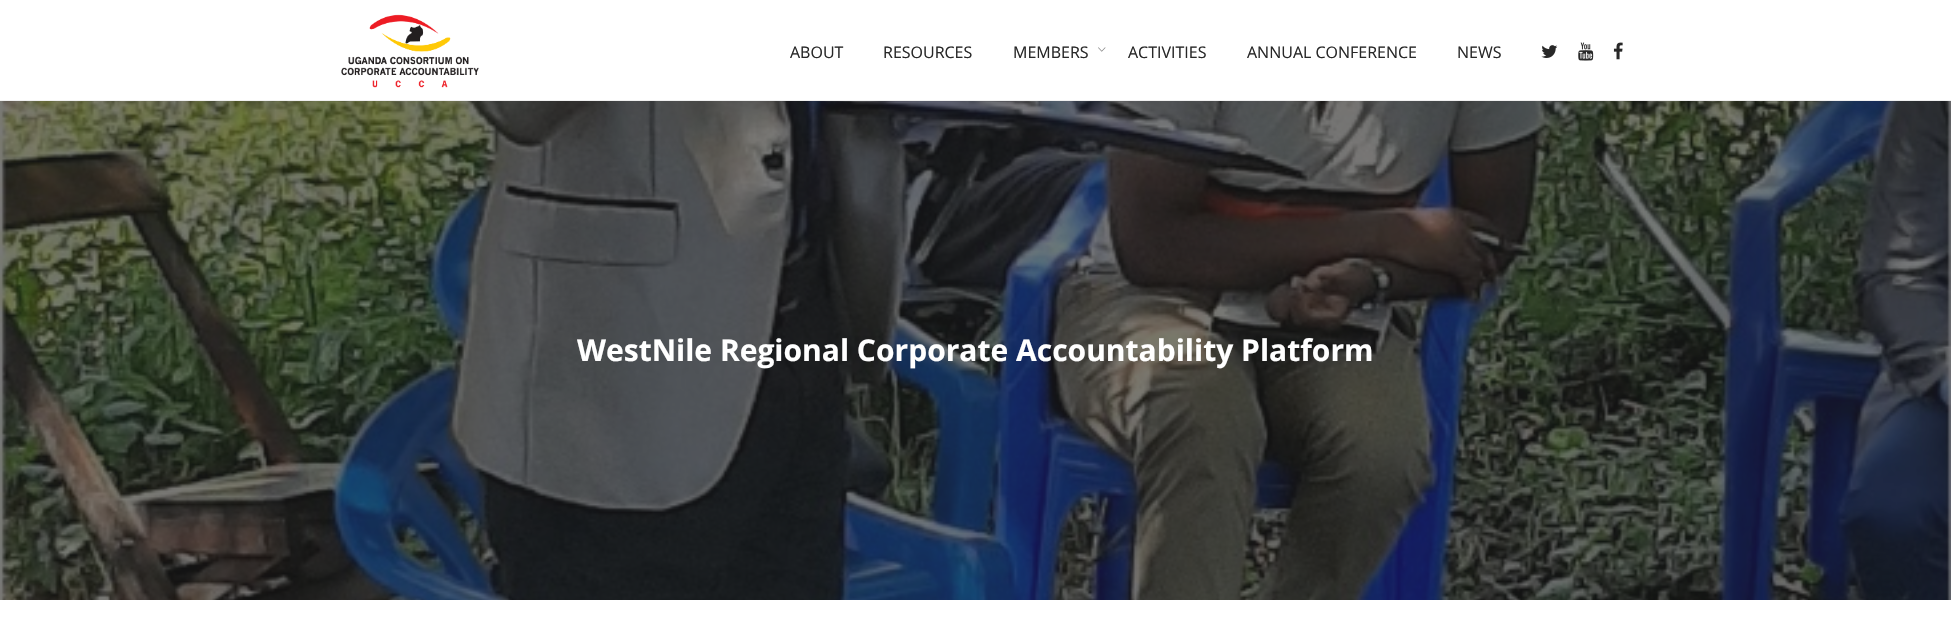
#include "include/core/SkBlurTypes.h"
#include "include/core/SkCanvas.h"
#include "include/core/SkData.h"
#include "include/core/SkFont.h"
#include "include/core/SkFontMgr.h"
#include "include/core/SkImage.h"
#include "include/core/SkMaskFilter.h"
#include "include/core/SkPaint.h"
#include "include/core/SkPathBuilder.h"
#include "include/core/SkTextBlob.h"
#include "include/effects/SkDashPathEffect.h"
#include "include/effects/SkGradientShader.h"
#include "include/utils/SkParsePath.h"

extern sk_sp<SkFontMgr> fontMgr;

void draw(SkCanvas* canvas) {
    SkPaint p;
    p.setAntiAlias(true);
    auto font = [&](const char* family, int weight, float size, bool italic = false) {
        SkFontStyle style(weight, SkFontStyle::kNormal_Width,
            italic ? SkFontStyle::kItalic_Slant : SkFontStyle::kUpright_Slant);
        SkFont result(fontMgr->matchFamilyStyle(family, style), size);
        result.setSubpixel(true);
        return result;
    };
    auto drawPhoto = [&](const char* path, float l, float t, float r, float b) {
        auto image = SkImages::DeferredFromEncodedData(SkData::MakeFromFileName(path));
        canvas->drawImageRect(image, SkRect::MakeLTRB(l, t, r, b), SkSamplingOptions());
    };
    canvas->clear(0xFFFFFFFF);
    p.setColor(0xFFF0F0F0);
    canvas->drawRect(SkRect::MakeLTRB(0, 100, 1951, 101), p);
    drawPhoto("media/1.png", 341, 14, 479, 88);
    auto font1 = font("Open Sans", 400, 16);
    p.setColor(0xFF282828);
    {
        const struct { const char* s; float x, y; } items[] = {
            {"ABOUT", 790, 58},
            {"RESOURCES", 883, 58},
            {"MEMBERS", 1013, 58},
        };
        for (auto [s, x, y] : items) {
            canvas->drawString(s, x, y, font1, p);
        }
    }
    drawPhoto("media/2.png", 1098, 47, 1106, 52);
    {
        const struct { const char* s; float x, y; } items[] = {
            {"ACTIVITIES", 1128, 58},
            {"ANNUAL CONFERENCE", 1247, 58},
            {"NEWS", 1457, 58},
        };
        for (auto [s, x, y] : items) {
            canvas->drawString(s, x, y, font1, p);
        }
    }
    drawPhoto("media/3.png", 1541, 45, 1558, 58);
    drawPhoto("media/4.png", 1578, 42, 1594, 61);
    drawPhoto("media/5.png", 1613, 42, 1623, 60);
    drawPhoto("media/6.png", 0, 101, 1951, 600);
    auto font2 = font("Open Sans", 700, 30);
    p.setColor(0xFFFFFFFF);
    canvas->drawString("WestNile Regional Corporate Accountability Platform", 577, 361, font2, p);
}
